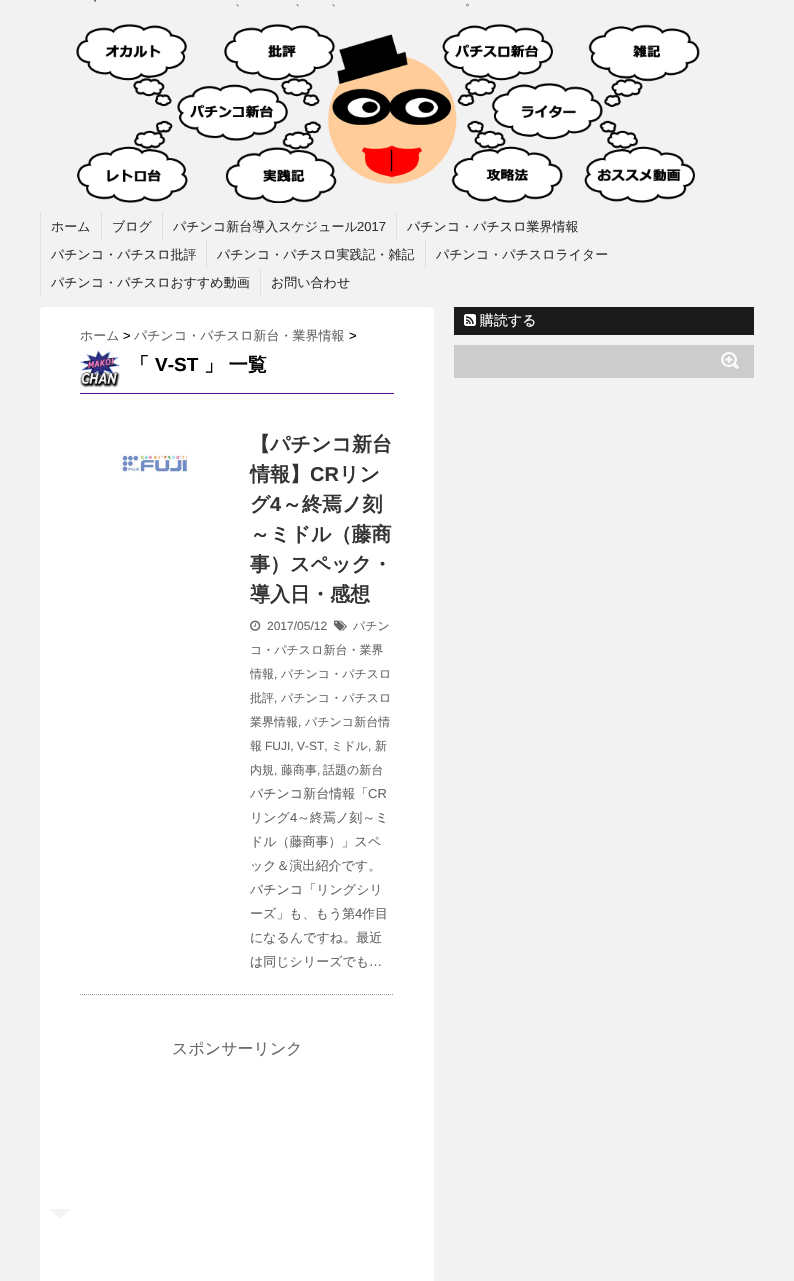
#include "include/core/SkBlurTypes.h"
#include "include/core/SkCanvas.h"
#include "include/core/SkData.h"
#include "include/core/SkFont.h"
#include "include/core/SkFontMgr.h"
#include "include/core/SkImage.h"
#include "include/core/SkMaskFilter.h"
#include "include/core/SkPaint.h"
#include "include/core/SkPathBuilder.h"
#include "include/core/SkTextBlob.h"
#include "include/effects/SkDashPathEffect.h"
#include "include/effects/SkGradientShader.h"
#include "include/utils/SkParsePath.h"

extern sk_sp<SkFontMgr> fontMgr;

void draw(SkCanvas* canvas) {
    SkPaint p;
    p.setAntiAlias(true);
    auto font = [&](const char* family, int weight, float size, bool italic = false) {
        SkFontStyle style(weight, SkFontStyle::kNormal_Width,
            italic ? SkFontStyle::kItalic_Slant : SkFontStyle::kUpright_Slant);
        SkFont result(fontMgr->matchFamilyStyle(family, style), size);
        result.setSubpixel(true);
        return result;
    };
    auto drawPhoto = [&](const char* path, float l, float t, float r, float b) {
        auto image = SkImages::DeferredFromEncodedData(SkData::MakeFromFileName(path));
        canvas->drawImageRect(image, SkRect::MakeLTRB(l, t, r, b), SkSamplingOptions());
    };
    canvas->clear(0xFFF2F2F2);
    auto font1 = font("WenQuanYi Zen Hei", 500, 12);
    p.setColor(0xFF666666);
    {
        const struct { const char* s; float x, y; } items[] = {
            {"・", 89, 5},
            {"、", 235, 5},
            {"、", 295, 5},
            {"、", 331, 5},
            {"。", 465, 5},
        };
        for (auto [s, x, y] : items) {
            canvas->drawString(s, x, y, font1, p);
        }
    }
    drawPhoto("media/1.png", 76, 24, 700, 203);
    p.setStyle(SkPaint::kStroke_Style);
    p.setStrokeWidth(1);
    p.setColor(0xFFCCCCCC);
    p.setPathEffect(SkDashPathEffect::Make({{1, 1}}, 0));
    canvas->drawPath(SkPathBuilder().moveTo(40.5f, 213).lineTo(40.5f, 241).detach(), p);
    p.setPathEffect(nullptr);
    auto font2 = font("WenQuanYi Zen Hei", 500, 13);
    p.setStyle(SkPaint::kFill_Style);
    p.setColor(0xFF333333);
    canvas->drawString("ホーム", 51, 231, font2, p);
    p.setStyle(SkPaint::kStroke_Style);
    p.setColor(0xFFCCCCCC);
    p.setPathEffect(SkDashPathEffect::Make({{1, 1}}, 0));
    canvas->drawPath(SkPathBuilder().moveTo(101.5f, 213).lineTo(101.5f, 241).detach(), p);
    p.setPathEffect(nullptr);
    p.setStyle(SkPaint::kFill_Style);
    p.setColor(0xFF333333);
    canvas->drawString("ブログ", 112, 231, font2, p);
    p.setStyle(SkPaint::kStroke_Style);
    p.setColor(0xFFCCCCCC);
    p.setPathEffect(SkDashPathEffect::Make({{1, 1}}, 0));
    canvas->drawPath(SkPathBuilder().moveTo(162.5f, 213).lineTo(162.5f, 241).detach(), p);
    p.setPathEffect(nullptr);
    p.setStyle(SkPaint::kFill_Style);
    p.setColor(0xFF333333);
    canvas->drawString("パチンコ新台導入スケジュール", 173, 231, font2, p);
    auto font3 = font("Liberation Sans", 400, 13);
    canvas->drawString("2017", 357, 231, font3, p);
    p.setStyle(SkPaint::kStroke_Style);
    p.setColor(0xFFCCCCCC);
    p.setPathEffect(SkDashPathEffect::Make({{1, 1}}, 0));
    canvas->drawPath(SkPathBuilder().moveTo(396.5f, 213).lineTo(396.5f, 241).detach(), p);
    p.setPathEffect(nullptr);
    p.setStyle(SkPaint::kFill_Style);
    p.setColor(0xFF333333);
    canvas->drawString("パチンコ・パチスロ業界情報", 407, 231, font2, p);
    p.setStyle(SkPaint::kStroke_Style);
    p.setColor(0xFFCCCCCC);
    p.setPathEffect(SkDashPathEffect::Make({{1, 1}}, 0));
    canvas->drawPath(SkPathBuilder().moveTo(40.5f, 241).lineTo(40.5f, 269).detach(), p);
    p.setPathEffect(nullptr);
    p.setStyle(SkPaint::kFill_Style);
    p.setColor(0xFF333333);
    canvas->drawString("パチンコ・パチスロ批評", 51, 259, font2, p);
    p.setStyle(SkPaint::kStroke_Style);
    p.setColor(0xFFCCCCCC);
    p.setPathEffect(SkDashPathEffect::Make({{1, 1}}, 0));
    canvas->drawPath(SkPathBuilder().moveTo(206.5f, 241).lineTo(206.5f, 269).detach(), p);
    p.setPathEffect(nullptr);
    p.setStyle(SkPaint::kFill_Style);
    p.setColor(0xFF333333);
    canvas->drawString("パチンコ・パチスロ実践記・雑記", 217, 259, font2, p);
    p.setStyle(SkPaint::kStroke_Style);
    p.setColor(0xFFCCCCCC);
    p.setPathEffect(SkDashPathEffect::Make({{1, 1}}, 0));
    canvas->drawPath(SkPathBuilder().moveTo(425.5f, 241).lineTo(425.5f, 269).detach(), p);
    p.setPathEffect(nullptr);
    p.setStyle(SkPaint::kFill_Style);
    p.setColor(0xFF333333);
    canvas->drawString("パチンコ・パチスロライター", 436, 259, font2, p);
    p.setStyle(SkPaint::kStroke_Style);
    p.setColor(0xFFCCCCCC);
    p.setPathEffect(SkDashPathEffect::Make({{1, 1}}, 0));
    canvas->drawPath(SkPathBuilder().moveTo(40.5f, 269).lineTo(40.5f, 297).detach(), p);
    p.setPathEffect(nullptr);
    p.setStyle(SkPaint::kFill_Style);
    p.setColor(0xFF333333);
    canvas->drawString("パチンコ・パチスロおすすめ動画", 51, 287, font2, p);
    p.setStyle(SkPaint::kStroke_Style);
    p.setColor(0xFFCCCCCC);
    p.setPathEffect(SkDashPathEffect::Make({{1, 1}}, 0));
    canvas->drawPath(SkPathBuilder().moveTo(260.5f, 269).lineTo(260.5f, 297).detach(), p);
    p.setPathEffect(nullptr);
    p.setStyle(SkPaint::kFill_Style);
    p.setColor(0xFF333333);
    canvas->drawString("お問い合わせ", 271, 287, font2, p);
    p.setColor(0xFF1A1A1A);
    canvas->drawRect(SkRect::MakeLTRB(454, 307, 754, 335), p);
    drawPhoto("media/2.png", 464, 314, 476, 326);
    auto font4 = font("WenQuanYi Zen Hei", 500, 14);
    p.setColor(0xFFFFFFFF);
    canvas->drawString("購読する", 480, 325, font4, p);
    p.setColor(0xFFCCCCCC);
    canvas->drawRect(SkRect::MakeLTRB(454, 345, 754, 378), p);
    drawPhoto("media/3.png", 721, 352, 739, 369);
    p.setColor(0xFFFFFFFF);
    canvas->drawRoundRect(SkRect::MakeLTRB(40, 307, 434, 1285), 4, 4, p);
    p.setColor(0xFF666666);
    canvas->drawString("ホーム", 80, 340, font2, p);
    p.setColor(0xFF000000);
    canvas->drawString(">", 123, 340, font3, p);
    p.setColor(0xFF666666);
    canvas->drawString("パチンコ・パチスロ新台・業界情報", 134, 340, font2, p);
    p.setColor(0xFF000000);
    canvas->drawString(">", 349, 340, font3, p);
    drawPhoto("media/4.png", 80, 350, 120, 388);
    p.setColor(0xFF560B8B);
    canvas->drawRect(SkRect::MakeLTRB(80, 393, 394, 394), p);
    auto font5 = font("WenQuanYi Zen Hei", 700, 19);
    p.setColor(0xFF000000);
    canvas->drawString("「", 130, 371, font5, p);
    auto font6 = font("Liberation Sans", 700, 19);
    canvas->drawString("V-ST", 155, 371, font6, p);
    canvas->drawString("」 一覧", 204, 371, font5, p);
    p.setColor(0xFFF3F3F3);
    canvas->drawPath(SkPathBuilder().moveTo(50, 1209).lineTo(70, 1209).lineTo(60, 1219).close().detach(), p);
    canvas->drawPath(SkPathBuilder().moveTo(52, 1209).lineTo(50.5f, 1209.5f).lineTo(55, 1214).lineTo(65, 1214).lineTo(69.5f, 1209.5f).lineTo(68, 1209).close().detach(), p);
    p.setStyle(SkPaint::kStroke_Style);
    p.setColor(0xFF999999);
    p.setPathEffect(SkDashPathEffect::Make({{1, 1}}, 0));
    canvas->drawPath(SkPathBuilder().moveTo(80, 994.5f).lineTo(394, 994.5f).detach(), p);
    p.setPathEffect(nullptr);
    drawPhoto("media/5.png", 120, 453, 190, 477);
    auto font7 = font("WenQuanYi Zen Hei", 700, 20);
    p.setStyle(SkPaint::kFill_Style);
    p.setColor(0xFF333333);
    canvas->drawString("【パチンコ新台", 250, 451, font7, p);
    canvas->drawString("情報】", 250, 481, font7, p);
    auto font8 = font("Liberation Sans", 700, 20);
    canvas->drawString("CR", 310, 481, font8, p);
    canvas->drawString("リン", 339, 481, font7, p);
    canvas->drawString("グ", 250, 511, font7, p);
    canvas->drawString("4", 270, 511, font8, p);
    {
        const struct { const char* s; float x, y; } items[] = {
            {"～終焉ノ刻", 282, 511},
            {"～ミドル（藤商", 250, 541},
            {"事）スペック・", 250, 571},
            {"導入日・感想", 250, 601},
        };
        for (auto [s, x, y] : items) {
            canvas->drawString(s, x, y, font7, p);
        }
    }
    drawPhoto("media/6.png", 250, 620, 261, 631);
    drawPhoto("media/7.png", 334, 620, 347, 631);
    p.setColor(0xFF666666);
    {
        const struct { const char* s; float x, y; } items[] = {
            {"パチン", 353, 630},
            {"コ・パチスロ新台・業界", 250, 654},
            {"情報", 250, 678},
        };
        for (auto [s, x, y] : items) {
            canvas->drawString(s, x, y, font1, p);
        }
    }
    auto font9 = font("Liberation Sans", 400, 12);
    canvas->drawString(",", 274, 678, font9, p);
    canvas->drawString("パチンコ・パチスロ", 281, 678, font1, p);
    canvas->drawString("批評", 250, 702, font1, p);
    canvas->drawString(",", 274, 702, font9, p);
    canvas->drawString("パチンコ・パチスロ", 281, 702, font1, p);
    canvas->drawString("業界情報", 250, 726, font1, p);
    canvas->drawString(",", 298, 726, font9, p);
    canvas->drawString("パチンコ新台情", 305, 726, font1, p);
    canvas->drawString("報", 250, 750, font1, p);
    canvas->drawString("FUJI, V-ST,", 265, 750, font9, p);
    canvas->drawString("ミドル", 331, 750, font1, p);
    canvas->drawString(",", 368, 750, font9, p);
    canvas->drawString("新", 375, 750, font1, p);
    canvas->drawString("内規", 250, 774, font1, p);
    canvas->drawString(",", 274, 774, font9, p);
    canvas->drawString("藤商事", 281, 774, font1, p);
    canvas->drawString(",", 317, 774, font9, p);
    canvas->drawString("話題の新台", 323, 774, font1, p);
    canvas->drawString("2017/05/12", 267, 630, font9, p);
    canvas->drawString("パチンコ新台情報「", 250, 798, font2, p);
    canvas->drawString("CR", 368, 798, font3, p);
    canvas->drawString("リング", 250, 822, font2, p);
    canvas->drawString("4", 290, 822, font3, p);
    {
        const struct { const char* s; float x, y; } items[] = {
            {"～終焉ノ刻～ミ", 297, 822},
            {"ドル（藤商事）」スペ", 250, 846},
            {"ック＆演出紹介です。", 250, 870},
            {"パチンコ「リングシリ", 250, 894},
            {"ーズ」も、もう第", 250, 918},
        };
        for (auto [s, x, y] : items) {
            canvas->drawString(s, x, y, font2, p);
        }
    }
    canvas->drawString("4", 355, 918, font3, p);
    {
        const struct { const char* s; float x, y; } items[] = {
            {"作目", 362, 918},
            {"になるんですね。最近", 250, 942},
            {"は同じシリーズでも", 250, 966},
        };
        for (auto [s, x, y] : items) {
            canvas->drawString(s, x, y, font2, p);
        }
    }
    canvas->drawString("…", 369, 966, font3, p);
    auto font10 = font("WenQuanYi Zen Hei", 500, 16);
    canvas->drawString("スポンサーリンク", 172, 1054, font10, p);
}
